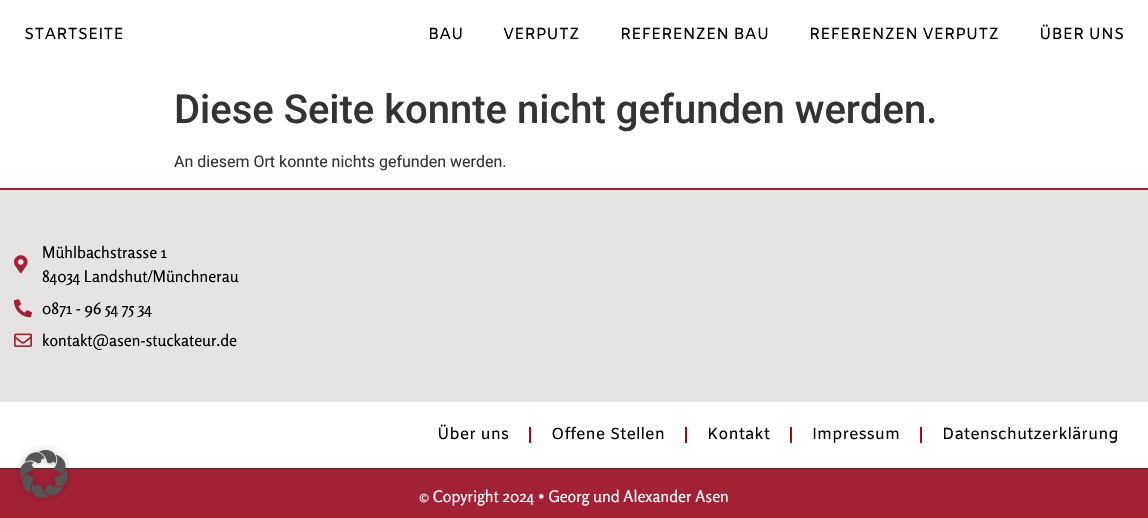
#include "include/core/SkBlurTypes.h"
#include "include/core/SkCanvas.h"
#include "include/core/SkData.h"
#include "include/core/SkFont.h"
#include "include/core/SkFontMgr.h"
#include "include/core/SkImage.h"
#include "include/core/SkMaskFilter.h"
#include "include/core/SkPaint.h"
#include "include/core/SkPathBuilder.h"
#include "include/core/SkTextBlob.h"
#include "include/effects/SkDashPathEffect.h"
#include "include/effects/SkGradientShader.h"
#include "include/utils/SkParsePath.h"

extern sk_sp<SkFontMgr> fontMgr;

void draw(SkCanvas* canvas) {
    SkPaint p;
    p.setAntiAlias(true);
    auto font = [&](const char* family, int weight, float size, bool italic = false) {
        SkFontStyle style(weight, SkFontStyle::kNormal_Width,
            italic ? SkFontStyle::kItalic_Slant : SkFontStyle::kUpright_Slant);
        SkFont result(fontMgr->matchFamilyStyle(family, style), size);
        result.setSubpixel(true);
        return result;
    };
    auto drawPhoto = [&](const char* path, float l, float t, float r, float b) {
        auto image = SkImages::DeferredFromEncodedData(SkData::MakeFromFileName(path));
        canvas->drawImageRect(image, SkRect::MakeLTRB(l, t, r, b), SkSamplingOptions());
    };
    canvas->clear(0xFFFFFFFF);
    auto font1 = font("Amiko", 400, 16);
    p.setColor(0xFF000000);
    {
        const struct { const char* s; float x, y; } items[] = {
            {"STARTSEITE", 24, 39},
            {"BAU", 428, 39},
            {"VERPUTZ", 503, 39},
            {"REFERENZEN BAU", 620, 39},
            {"REFERENZEN VERPUTZ", 809, 39},
            {"ÜBER UNS", 1039, 39},
        };
        for (auto [s, x, y] : items) {
            canvas->drawString(s, x, y, font1, p);
        }
    }
    auto font2 = font("Roboto", 500, 40);
    p.setColor(0xFF333333);
    canvas->drawString("Diese Seite konnte nicht gefunden werden.", 174, 123, font2, p);
    auto font3 = font("Roboto", 400, 16);
    canvas->drawString("An diesem Ort konnte nichts gefunden werden.", 174, 167, font3, p);
    p.setColor(0xFFE6E3E3);
    canvas->drawRect(SkRect::MakeLTRB(0, 190, 1148, 402), p);
    p.setColor(0xFFA22135);
    canvas->drawRect(SkRect::MakeLTRB(0, 188, 1148, 190), p);
    drawPhoto("media/1.png", 14, 255, 28, 274);
    auto font4 = font("Rosario", 400, 16);
    p.setColor(0xFF000000);
    canvas->drawString("Mühlbachstrasse 1", 42, 258, font4, p);
    canvas->drawString("84034 Landshut/Münchnerau", 42, 282, font4, p);
    drawPhoto("media/2.png", 14, 299, 32, 318);
    canvas->drawString("0871 - 96 54 75 34", 42, 314, font4, p);
    drawPhoto("media/3.png", 14, 333, 32, 347);
    canvas->drawString("kontakt@asen-stuckateur.de", 42, 346, font4, p);
    canvas->drawString("Über uns", 437, 439, font1, p);
    p.setColor(0xFF960C1D);
    canvas->drawRect(SkRect::MakeLTRB(529, 427, 531, 443), p);
    p.setColor(0xFF000000);
    canvas->drawString("Offene Stellen", 551, 439, font1, p);
    p.setColor(0xFF960C1D);
    canvas->drawRect(SkRect::MakeLTRB(685, 427, 687, 443), p);
    p.setColor(0xFF000000);
    canvas->drawString("Kontakt", 707, 439, font1, p);
    p.setColor(0xFF960C1D);
    canvas->drawRect(SkRect::MakeLTRB(790, 427, 792, 443), p);
    p.setColor(0xFF000000);
    canvas->drawString("Impressum", 812, 439, font1, p);
    p.setColor(0xFF960C1D);
    canvas->drawRect(SkRect::MakeLTRB(920, 427, 922, 443), p);
    p.setColor(0xFF000000);
    canvas->drawString("Datenschutzerklärung", 942, 439, font1, p);
    p.setColor(0xFFA22135);
    canvas->drawRect(SkRect::MakeLTRB(0, 469, 1148, 518), p);
    p.setColor(0xFF333333);
    canvas->drawRect(SkRect::MakeLTRB(0, 468, 1148, 469), p);
    p.setColor(0xFFFFFFFF);
    canvas->drawString("© Copyright 2024 • Georg und Alexander Asen", 419, 502, font4, p);
    drawPhoto("media/4.png", 16, 445, 72, 502);
}
